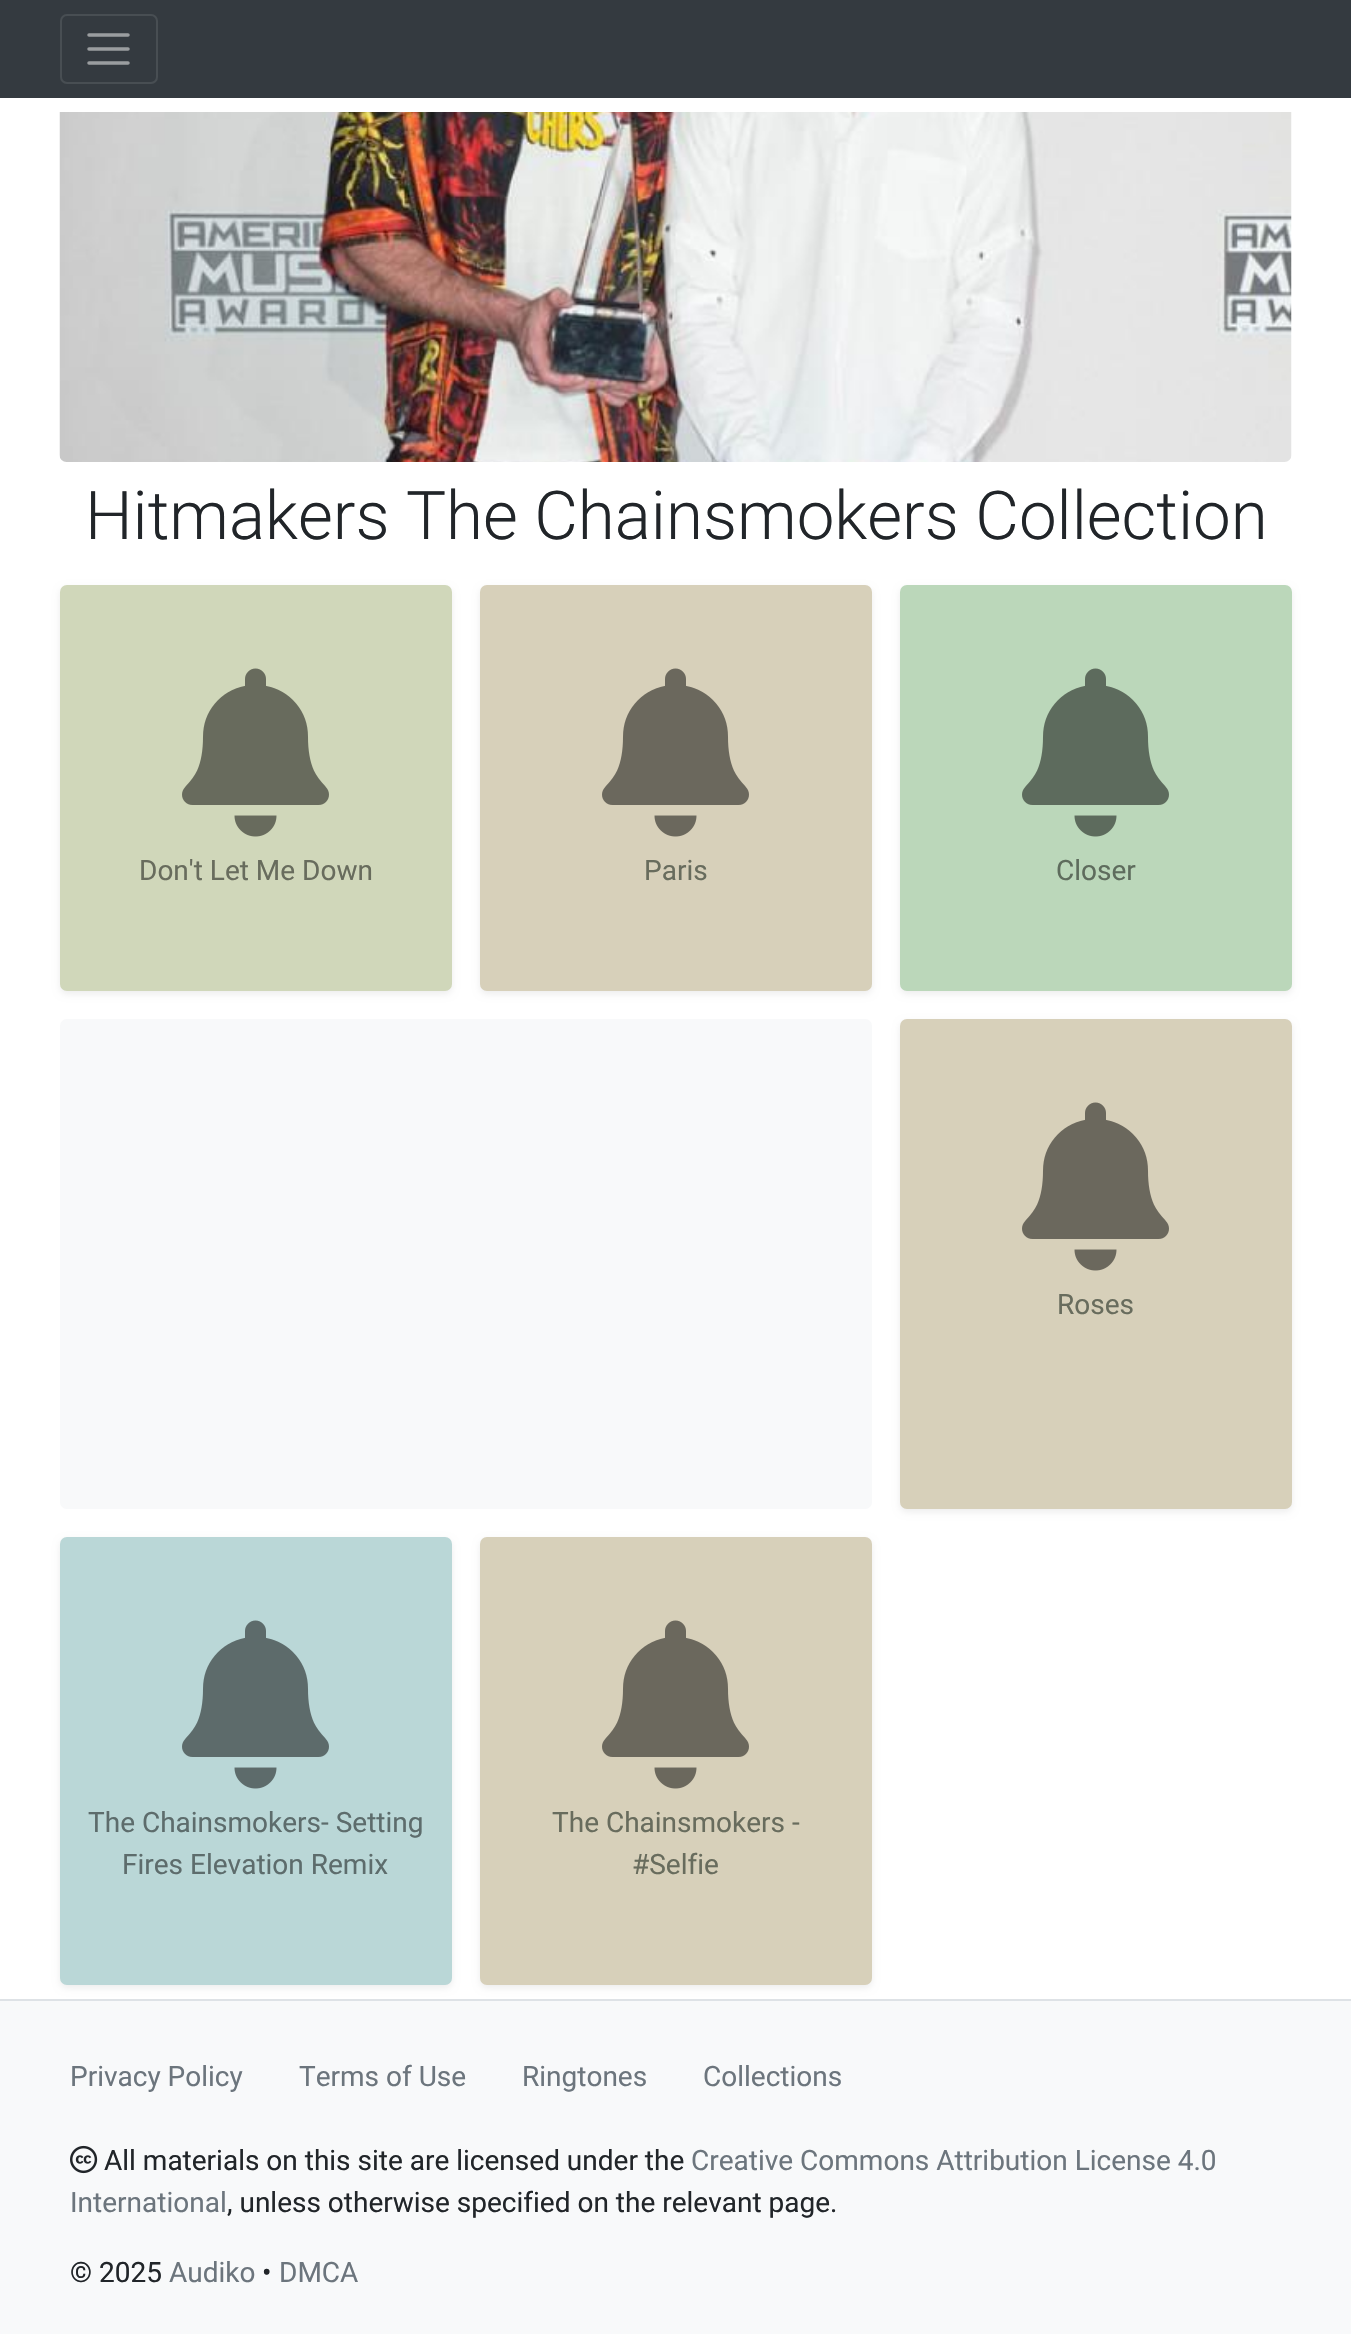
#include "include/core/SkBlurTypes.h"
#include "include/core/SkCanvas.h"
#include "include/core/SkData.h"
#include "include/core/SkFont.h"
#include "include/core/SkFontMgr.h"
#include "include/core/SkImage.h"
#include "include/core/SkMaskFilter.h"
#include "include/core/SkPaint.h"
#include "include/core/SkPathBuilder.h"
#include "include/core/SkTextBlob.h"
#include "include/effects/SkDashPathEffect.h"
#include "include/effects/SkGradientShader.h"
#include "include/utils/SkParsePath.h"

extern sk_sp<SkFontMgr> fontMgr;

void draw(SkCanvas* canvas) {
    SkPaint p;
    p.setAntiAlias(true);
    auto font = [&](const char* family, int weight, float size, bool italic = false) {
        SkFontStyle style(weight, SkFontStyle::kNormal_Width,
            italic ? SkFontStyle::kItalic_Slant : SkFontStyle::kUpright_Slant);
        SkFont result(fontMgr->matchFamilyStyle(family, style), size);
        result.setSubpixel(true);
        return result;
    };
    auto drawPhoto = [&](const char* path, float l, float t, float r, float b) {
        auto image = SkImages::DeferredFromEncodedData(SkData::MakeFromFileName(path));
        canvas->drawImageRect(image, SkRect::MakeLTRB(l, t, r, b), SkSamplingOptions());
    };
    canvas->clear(0xFFFFFFFF);
    p.setColor(0xFF343A40);
    canvas->drawRect(SkRect::MakeLTRB(0, 0, 1351, 98), p);
    p.setStyle(SkPaint::kStroke_Style);
    p.setStrokeWidth(2);
    p.setColor(0xFF484E53);
    canvas->drawRoundRect(SkRect::MakeLTRB(61, 15, 157, 83), 6, 6, p);
    p.setStrokeWidth(3.5f);
    p.setStrokeCap(SkPaint::kRound_Cap);
    p.setColor(0xFF9A9DA0);
    canvas->drawPath(SkPathBuilder().moveTo(89, 35).lineTo(128, 35).moveTo(89, 49).lineTo(128, 49).moveTo(89, 63).lineTo(128, 63).detach(), p);
    drawPhoto("media/1.png", 59, 112, 1292, 462);
    auto font1 = font("Roboto", 300, 67.25f);
    p.setStyle(SkPaint::kFill_Style);
    p.setColor(0xFF212529);
    canvas->drawString("Hitmakers The Chainsmokers Collection", 85, 539, font1, p);
    p.setColor(0x12000000);
    p.setMaskFilter(SkMaskFilter::MakeBlur(kNormal_SkBlurStyle, 3.5f));
    canvas->drawRoundRect(SkRect::MakeLTRB(60, 588, 452, 994), 7, 7, p);
    p.setMaskFilter(nullptr);
    p.setColor(0xFFD0D7BA);
    canvas->drawRoundRect(SkRect::MakeLTRB(60, 585, 452, 991), 7, 7, p);
    drawPhoto("media/2.png", 182, 668, 329, 837);
    auto font2 = font("Roboto", 400, 28);
    p.setColor(0xFF686C5D);
    canvas->drawString("Don't Let Me Down", 139, 880, font2, p);
    p.setColor(0x12000000);
    p.setMaskFilter(SkMaskFilter::MakeBlur(kNormal_SkBlurStyle, 3.5f));
    canvas->drawRoundRect(SkRect::MakeLTRB(480, 588, 872, 994), 7, 7, p);
    p.setMaskFilter(nullptr);
    p.setColor(0xFFD7D0BA);
    canvas->drawRoundRect(SkRect::MakeLTRB(480, 585, 872, 991), 7, 7, p);
    drawPhoto("media/3.png", 602, 668, 749, 837);
    p.setColor(0xFF686C5D);
    canvas->drawString("Paris", 644, 880, font2, p);
    p.setColor(0x12000000);
    p.setMaskFilter(SkMaskFilter::MakeBlur(kNormal_SkBlurStyle, 3.5f));
    canvas->drawRoundRect(SkRect::MakeLTRB(900, 588, 1292, 994), 7, 7, p);
    p.setMaskFilter(nullptr);
    p.setColor(0xFFBBD7BA);
    canvas->drawRoundRect(SkRect::MakeLTRB(900, 585, 1292, 991), 7, 7, p);
    drawPhoto("media/4.png", 1022, 668, 1169, 837);
    p.setColor(0xFF5E6C5D);
    canvas->drawString("Closer", 1056, 880, font2, p);
    p.setColor(0xFFF8F9FA);
    canvas->drawRoundRect(SkRect::MakeLTRB(60, 1019, 872, 1509), 7, 7, p);
    p.setColor(0x12000000);
    p.setMaskFilter(SkMaskFilter::MakeBlur(kNormal_SkBlurStyle, 3.5f));
    canvas->drawRoundRect(SkRect::MakeLTRB(900, 1022, 1292, 1512), 7, 7, p);
    p.setMaskFilter(nullptr);
    p.setColor(0xFFD7D0BA);
    canvas->drawRoundRect(SkRect::MakeLTRB(900, 1019, 1292, 1509), 7, 7, p);
    drawPhoto("media/3.png", 1022, 1102, 1169, 1271);
    p.setColor(0xFF686C5D);
    canvas->drawString("Roses", 1057, 1314, font2, p);
    p.setColor(0xFFDEE2E6);
    canvas->drawRect(SkRect::MakeLTRB(0, 1999, 1351, 2001), p);
    p.setColor(0x12000000);
    p.setMaskFilter(SkMaskFilter::MakeBlur(kNormal_SkBlurStyle, 3.5f));
    canvas->drawRoundRect(SkRect::MakeLTRB(60, 1540, 452, 1988), 7, 7, p);
    p.setMaskFilter(nullptr);
    p.setColor(0xFFBAD7D7);
    canvas->drawRoundRect(SkRect::MakeLTRB(60, 1537, 452, 1985), 7, 7, p);
    drawPhoto("media/5.png", 182, 1620, 329, 1789);
    p.setColor(0xFF5D6C6C);
    canvas->drawString("The Chainsmokers- Setting", 88, 1832, font2, p);
    canvas->drawString("Fires Elevation Remix", 122, 1874, font2, p);
    p.setColor(0x12000000);
    p.setMaskFilter(SkMaskFilter::MakeBlur(kNormal_SkBlurStyle, 3.5f));
    canvas->drawRoundRect(SkRect::MakeLTRB(480, 1540, 872, 1988), 7, 7, p);
    p.setMaskFilter(nullptr);
    p.setColor(0xFFD7D0BA);
    canvas->drawRoundRect(SkRect::MakeLTRB(480, 1537, 872, 1985), 7, 7, p);
    drawPhoto("media/3.png", 602, 1620, 749, 1789);
    p.setColor(0xFF686C5D);
    canvas->drawString("The Chainsmokers -", 552, 1832, font2, p);
    canvas->drawString("#Selfie", 632, 1874, font2, p);
    p.setColor(0xFFF8F9FA);
    canvas->drawRect(SkRect::MakeLTRB(0, 2001, 1351, 2334), p);
    p.setColor(0xFF6C757D);
    {
        const struct { const char* s; float x, y; } items[] = {
            {"Privacy Policy", 70, 2086},
            {"Terms of Use", 299, 2086},
            {"Ringtones", 522, 2086},
            {"Collections", 703, 2086},
        };
        for (auto [s, x, y] : items) {
            canvas->drawString(s, x, y, font2, p);
        }
    }
    drawPhoto("media/6.png", 70, 2145, 98, 2174);
    p.setColor(0xFF212529);
    canvas->drawString("All materials on this site are licensed under the", 104, 2170, font2, p);
    p.setColor(0xFF6C757D);
    canvas->drawString("Creative Commons Attribution License 4.0", 691, 2170, font2, p);
    canvas->drawString("International", 70, 2212, font2, p);
    p.setColor(0xFF212529);
    canvas->drawString(", unless otherwise specified on the relevant page.", 227, 2212, font2, p);
    canvas->drawString("© 2025", 70, 2282, font2, p);
    p.setColor(0xFF6C757D);
    canvas->drawString("Audiko", 169, 2282, font2, p);
    p.setColor(0xFF212529);
    canvas->drawString("•", 262, 2282, font2, p);
    p.setColor(0xFF6C757D);
    canvas->drawString("DMCA", 279, 2282, font2, p);
}
